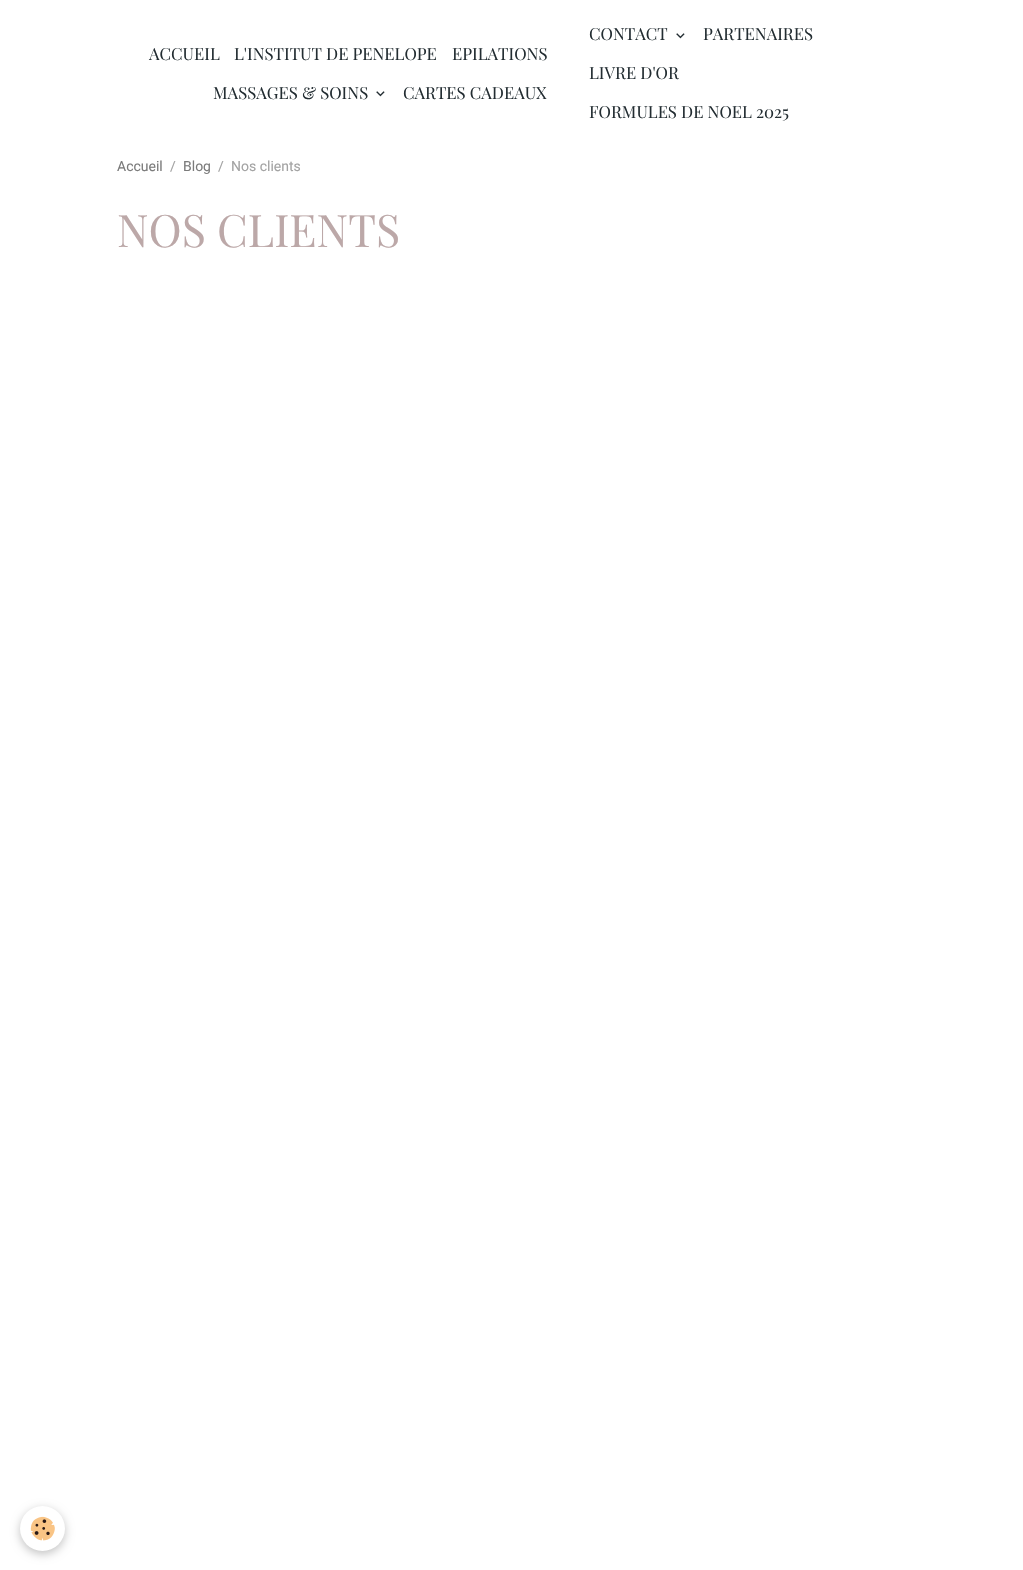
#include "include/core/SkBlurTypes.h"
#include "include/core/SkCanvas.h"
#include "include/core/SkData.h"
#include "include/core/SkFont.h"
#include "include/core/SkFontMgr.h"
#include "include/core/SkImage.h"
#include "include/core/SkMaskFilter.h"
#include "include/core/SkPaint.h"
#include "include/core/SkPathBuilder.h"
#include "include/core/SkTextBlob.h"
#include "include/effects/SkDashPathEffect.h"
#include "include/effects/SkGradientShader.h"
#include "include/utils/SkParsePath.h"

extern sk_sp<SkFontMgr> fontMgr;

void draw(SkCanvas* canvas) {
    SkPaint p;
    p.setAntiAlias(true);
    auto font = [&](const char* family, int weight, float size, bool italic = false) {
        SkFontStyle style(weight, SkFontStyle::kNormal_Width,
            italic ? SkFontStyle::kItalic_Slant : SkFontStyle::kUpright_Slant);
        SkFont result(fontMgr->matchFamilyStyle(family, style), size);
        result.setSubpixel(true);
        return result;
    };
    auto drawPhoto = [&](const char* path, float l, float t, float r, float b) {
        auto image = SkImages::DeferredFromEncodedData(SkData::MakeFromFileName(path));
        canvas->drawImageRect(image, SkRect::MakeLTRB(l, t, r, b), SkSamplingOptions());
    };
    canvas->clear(0xFFFFFFFF);
    auto font1 = font("Playfair Display", 400, 16.75f);
    p.setColor(0xFF232D32);
    {
        const struct { const char* s; float x, y; } items[] = {
            {"ACCUEIL", 149, 60},
            {"L'INSTITUT DE PENELOPE", 234, 60},
            {"EPILATIONS", 452, 60},
            {"MASSAGES & SOINS", 213, 99},
        };
        for (auto [s, x, y] : items) {
            canvas->drawString(s, x, y, font1, p);
        }
    }
    drawPhoto("media/1.png", 376, 91, 385, 97);
    canvas->drawString("CARTES CADEAUX", 403, 99, font1, p);
    canvas->drawString("CONTACT", 589, 40, font1, p);
    drawPhoto("media/1.png", 676, 33, 685, 39);
    {
        const struct { const char* s; float x, y; } items[] = {
            {"PARTENAIRES", 703, 40},
            {"LIVRE D'OR", 589, 79},
            {"FORMULES DE NOEL 2025", 589, 118},
        };
        for (auto [s, x, y] : items) {
            canvas->drawString(s, x, y, font1, p);
        }
    }
    auto font2 = font("Roboto", 400, 14);
    p.setColor(0xFF7B7B7B);
    canvas->drawString("Accueil", 117, 171, font2, p);
    p.setColor(0xFFA3A3A3);
    canvas->drawString("/", 170, 171, font2, p);
    p.setColor(0xFF7B7B7B);
    canvas->drawString("Blog", 183, 171, font2, p);
    p.setColor(0xFFA3A3A3);
    canvas->drawString("/", 218, 171, font2, p);
    canvas->drawString("Nos clients", 231, 171, font2, p);
    auto font3 = font("Playfair Display", 400, 44.75f);
    p.setColor(0xFFBCA8A8);
    canvas->drawString("NOS CLIENTS", 117, 247, font3, p);
    p.setColor(0x3D000000);
    p.setMaskFilter(SkMaskFilter::MakeBlur(kNormal_SkBlurStyle, 5));
    canvas->drawRoundRect(SkRect::MakeLTRB(20, 1509, 65, 1554), 22.5f, 22.5f, p);
    p.setMaskFilter(nullptr);
    p.setColor(0xFFFFFFFF);
    canvas->drawCircle(42.5f, 1528.5f, 22.5f, p);
    drawPhoto("media/2.png", 30, 1516, 55, 1541);
}
